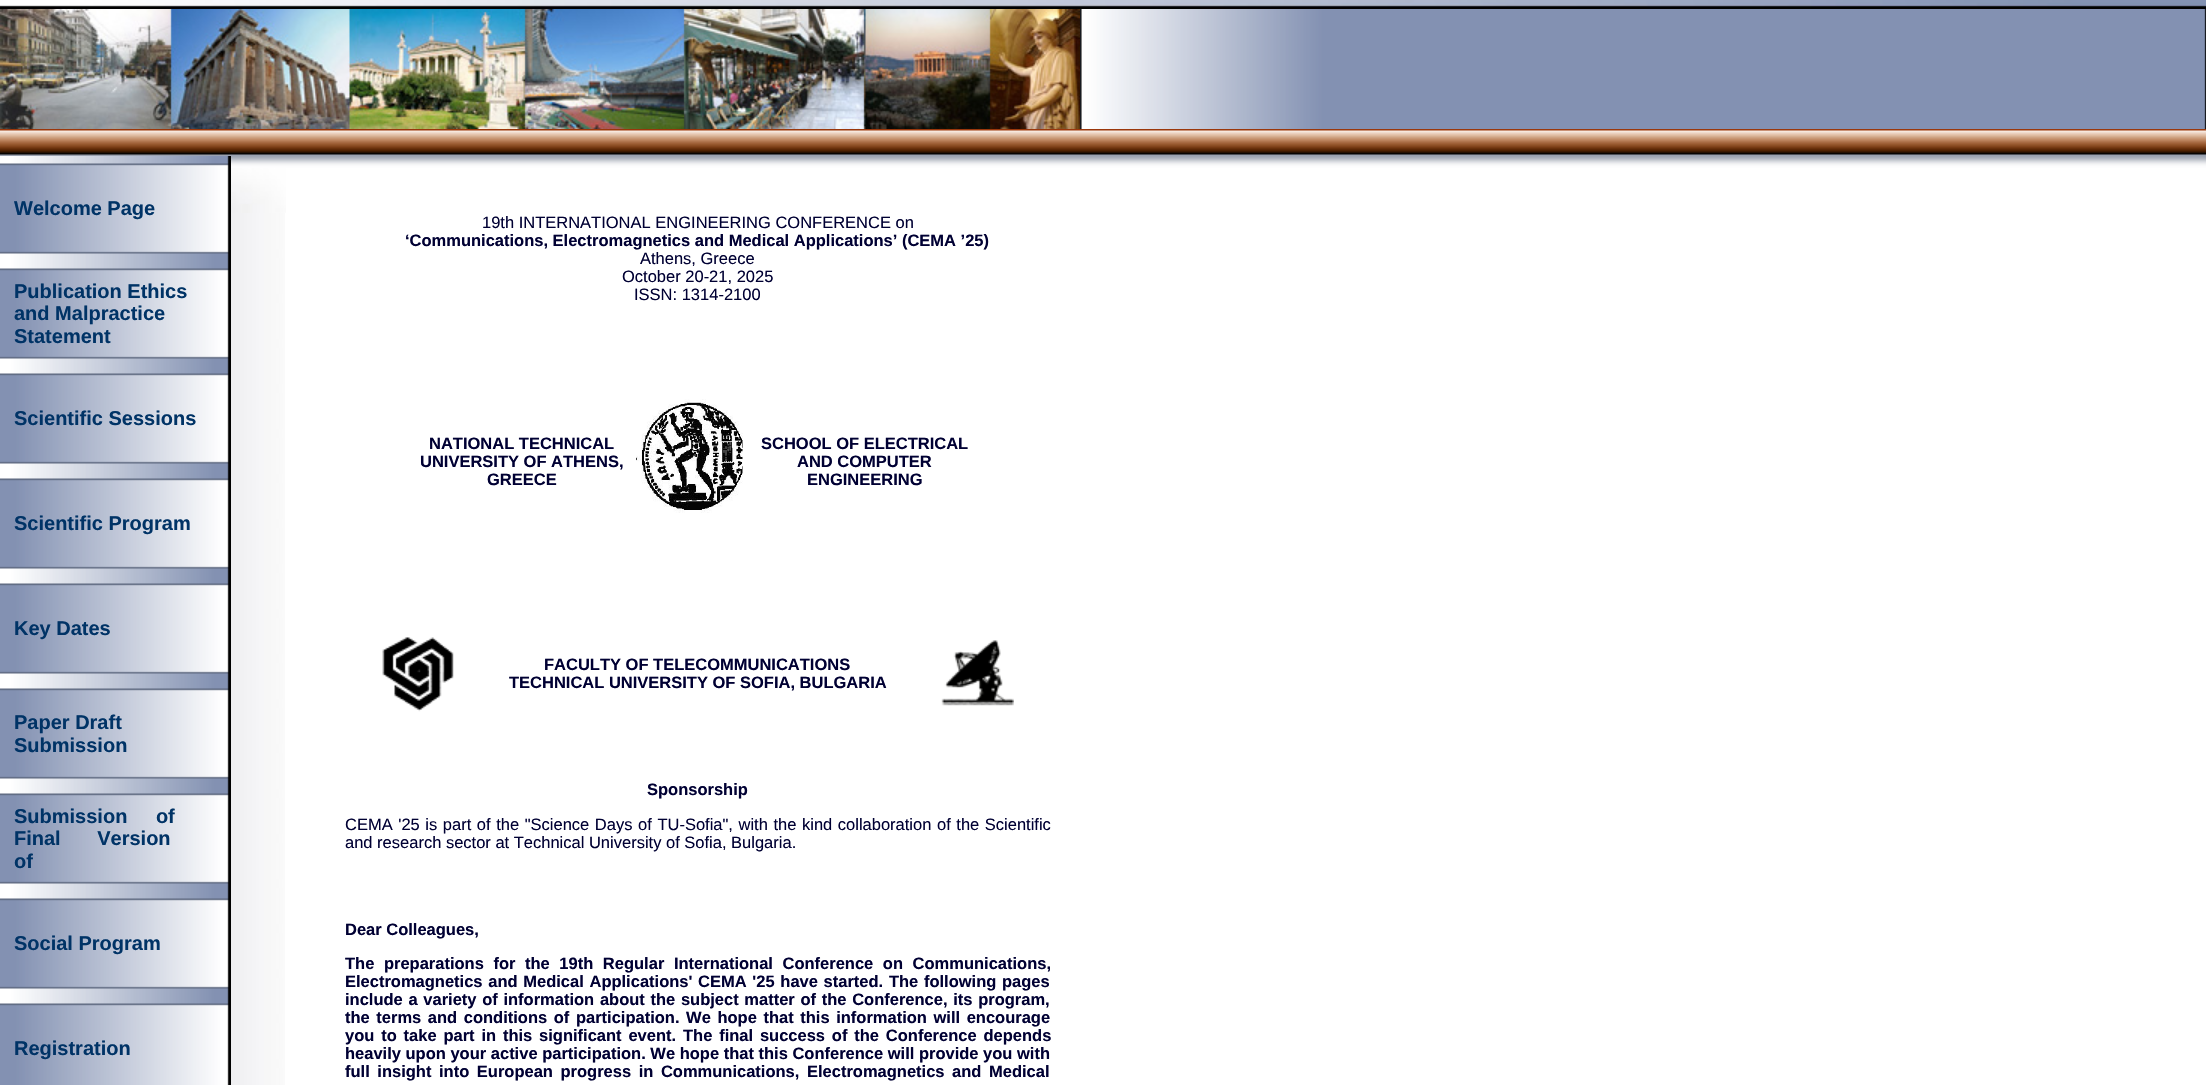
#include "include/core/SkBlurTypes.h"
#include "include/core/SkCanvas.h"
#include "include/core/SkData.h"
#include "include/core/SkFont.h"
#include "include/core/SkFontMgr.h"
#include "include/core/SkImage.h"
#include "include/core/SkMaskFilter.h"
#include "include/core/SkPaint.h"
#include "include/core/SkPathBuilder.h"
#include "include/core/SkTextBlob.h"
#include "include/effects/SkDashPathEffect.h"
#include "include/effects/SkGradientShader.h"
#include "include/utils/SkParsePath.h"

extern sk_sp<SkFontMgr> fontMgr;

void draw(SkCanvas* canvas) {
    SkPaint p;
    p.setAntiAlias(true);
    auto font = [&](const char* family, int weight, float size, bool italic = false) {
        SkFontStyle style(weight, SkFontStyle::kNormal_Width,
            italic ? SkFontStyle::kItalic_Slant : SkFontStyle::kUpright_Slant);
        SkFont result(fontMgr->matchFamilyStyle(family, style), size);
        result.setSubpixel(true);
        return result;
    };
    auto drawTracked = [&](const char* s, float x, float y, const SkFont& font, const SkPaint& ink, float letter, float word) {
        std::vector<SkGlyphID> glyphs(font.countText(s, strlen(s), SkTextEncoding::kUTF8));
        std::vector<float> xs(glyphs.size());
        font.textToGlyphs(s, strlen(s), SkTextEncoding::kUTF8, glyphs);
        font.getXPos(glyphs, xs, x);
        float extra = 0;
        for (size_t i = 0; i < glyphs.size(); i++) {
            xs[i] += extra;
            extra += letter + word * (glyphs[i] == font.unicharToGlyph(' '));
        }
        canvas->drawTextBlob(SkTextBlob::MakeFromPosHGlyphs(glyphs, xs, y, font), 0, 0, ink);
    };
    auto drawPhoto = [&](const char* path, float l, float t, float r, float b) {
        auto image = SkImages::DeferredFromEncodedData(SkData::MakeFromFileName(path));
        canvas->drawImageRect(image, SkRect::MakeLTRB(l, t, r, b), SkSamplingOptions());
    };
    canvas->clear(0xFFFFFFFF);
    drawPhoto("media/1.png", 0, 0, 2206, 9);
    drawPhoto("media/2.png", 0, 9, 1080, 129);
    drawPhoto("media/3.png", 1080, 9, 2206, 129);
    drawPhoto("media/4.png", 0, 129, 2206, 168);
    drawPhoto("media/5.png", 231, 168, 286, 213);
    drawPhoto("media/6.png", 0, 156, 231, 261);
    auto font1 = font("Liberation Sans", 700, 20);
    p.setColor(0xFF003366);
    canvas->drawString("Welcome Page", 14, 215, font1, p);
    drawPhoto("media/6.png", 0, 261, 231, 366);
    {
        const struct { const char* s; float x, y; } items[] = {
            {"Publication Ethics", 14, 298},
            {"and Malpractice", 14, 320},
            {"Statement", 14, 343},
        };
        for (auto [s, x, y] : items) {
            canvas->drawString(s, x, y, font1, p);
        }
    }
    drawPhoto("media/6.png", 0, 366, 231, 471);
    canvas->drawString("Scientific Sessions", 14, 425, font1, p);
    drawPhoto("media/6.png", 0, 471, 231, 576);
    canvas->drawString("Scientific Program", 14, 530, font1, p);
    drawPhoto("media/6.png", 0, 576, 231, 681);
    canvas->drawString("Key Dates", 14, 635, font1, p);
    drawPhoto("media/6.png", 0, 681, 231, 786);
    canvas->drawString("Paper Draft", 14, 729, font1, p);
    canvas->drawString("Submission", 14, 752, font1, p);
    drawPhoto("media/6.png", 0, 786, 231, 891);
    drawTracked("Submission of", 14, 823, font1, p, 0, 23);
    drawTracked("Final Version", 14, 845, font1, p, 0, 31);
    canvas->drawString("of", 14, 868, font1, p);
    drawPhoto("media/6.png", 0, 891, 231, 996);
    canvas->drawString("Social Program", 14, 950, font1, p);
    drawPhoto("media/7.png", 0, 996, 231, 1085);
    canvas->drawString("Registration", 14, 1055, font1, p);
    drawPhoto("media/8.png", 231, 213, 285, 1085);
    auto font2 = font("Liberation Sans", 400, 16.5f);
    p.setColor(0xFF000033);
    canvas->drawString("19th INTERNATIONAL ENGINEERING CONFERENCE on", 482, 228, font2, p);
    auto font3 = font("Liberation Sans", 700, 16.5f);
    canvas->drawString("‘Communications, Electromagnetics and Medical Applications’ (CEMA ’25)", 405, 246, font3, p);
    {
        const struct { const char* s; float x, y; } items[] = {
            {"Athens, Greece", 640, 264},
            {"October 20-21, 2025", 622, 282},
            {"ISSN: 1314-2100", 634, 300},
        };
        for (auto [s, x, y] : items) {
            canvas->drawString(s, x, y, font2, p);
        }
    }
    {
        const struct { const char* s; float x, y; } items[] = {
            {"NATIONAL TECHNICAL", 429, 449},
            {"UNIVERSITY OF ATHENS,", 420, 467},
            {"GREECE", 487, 485},
        };
        for (auto [s, x, y] : items) {
            canvas->drawString(s, x, y, font3, p);
        }
    }
    drawPhoto("media/9.png", 636, 399, 743, 513);
    {
        const struct { const char* s; float x, y; } items[] = {
            {"SCHOOL OF ELECTRICAL", 761, 449},
            {"AND COMPUTER", 797, 467},
            {"ENGINEERING", 807, 485},
        };
        for (auto [s, x, y] : items) {
            canvas->drawString(s, x, y, font3, p);
        }
    }
    drawPhoto("media/10.png", 382, 637, 454, 712);
    canvas->drawString("FACULTY OF TELECOMMUNICATIONS", 544, 670, font3, p);
    canvas->drawString("TECHNICAL UNIVERSITY OF SOFIA, BULGARIA", 509, 688, font3, p);
    drawPhoto("media/11.png", 941, 640, 1014, 706);
    canvas->drawString("Sponsorship", 647, 795, font3, p);
    drawTracked("CEMA '25 is part of the \"Science Days of TU-Sofia\", with the kind collaboration of the Scientific", 345, 830, font2, p, 0, 1);
    canvas->drawString("and research sector at Technical University of Sofia, Bulgaria.", 345, 848, font2, p);
    canvas->drawString("Dear Colleagues,", 345, 935, font3, p);
    drawTracked("The preparations for the 19th Regular International Conference on Communications,", 345, 969, font3, p, 0, 5);
    drawTracked("Electromagnetics and Medical Applications' CEMA '25 have started. The following pages", 345, 987, font3, p, 0, 1.1f);
    drawTracked("include a variety of information about the subject matter of the Conference, its program,", 345, 1005, font3, p, 0, 1.1f);
    drawTracked("the terms and conditions of participation. We hope that this information will encourage", 345, 1023, font3, p, 0, 2);
    drawTracked("you to take part in this significant event. The final success of the Conference depends", 345, 1041, font3, p, 0, 2.25f);
    canvas->drawString("heavily upon your active participation. We hope that this Conference will provide you with", 345, 1059, font3, p);
    drawTracked("full insight into European progress in Communications, Electromagnetics and Medical", 345, 1077, font3, p, 0, 3);
}
